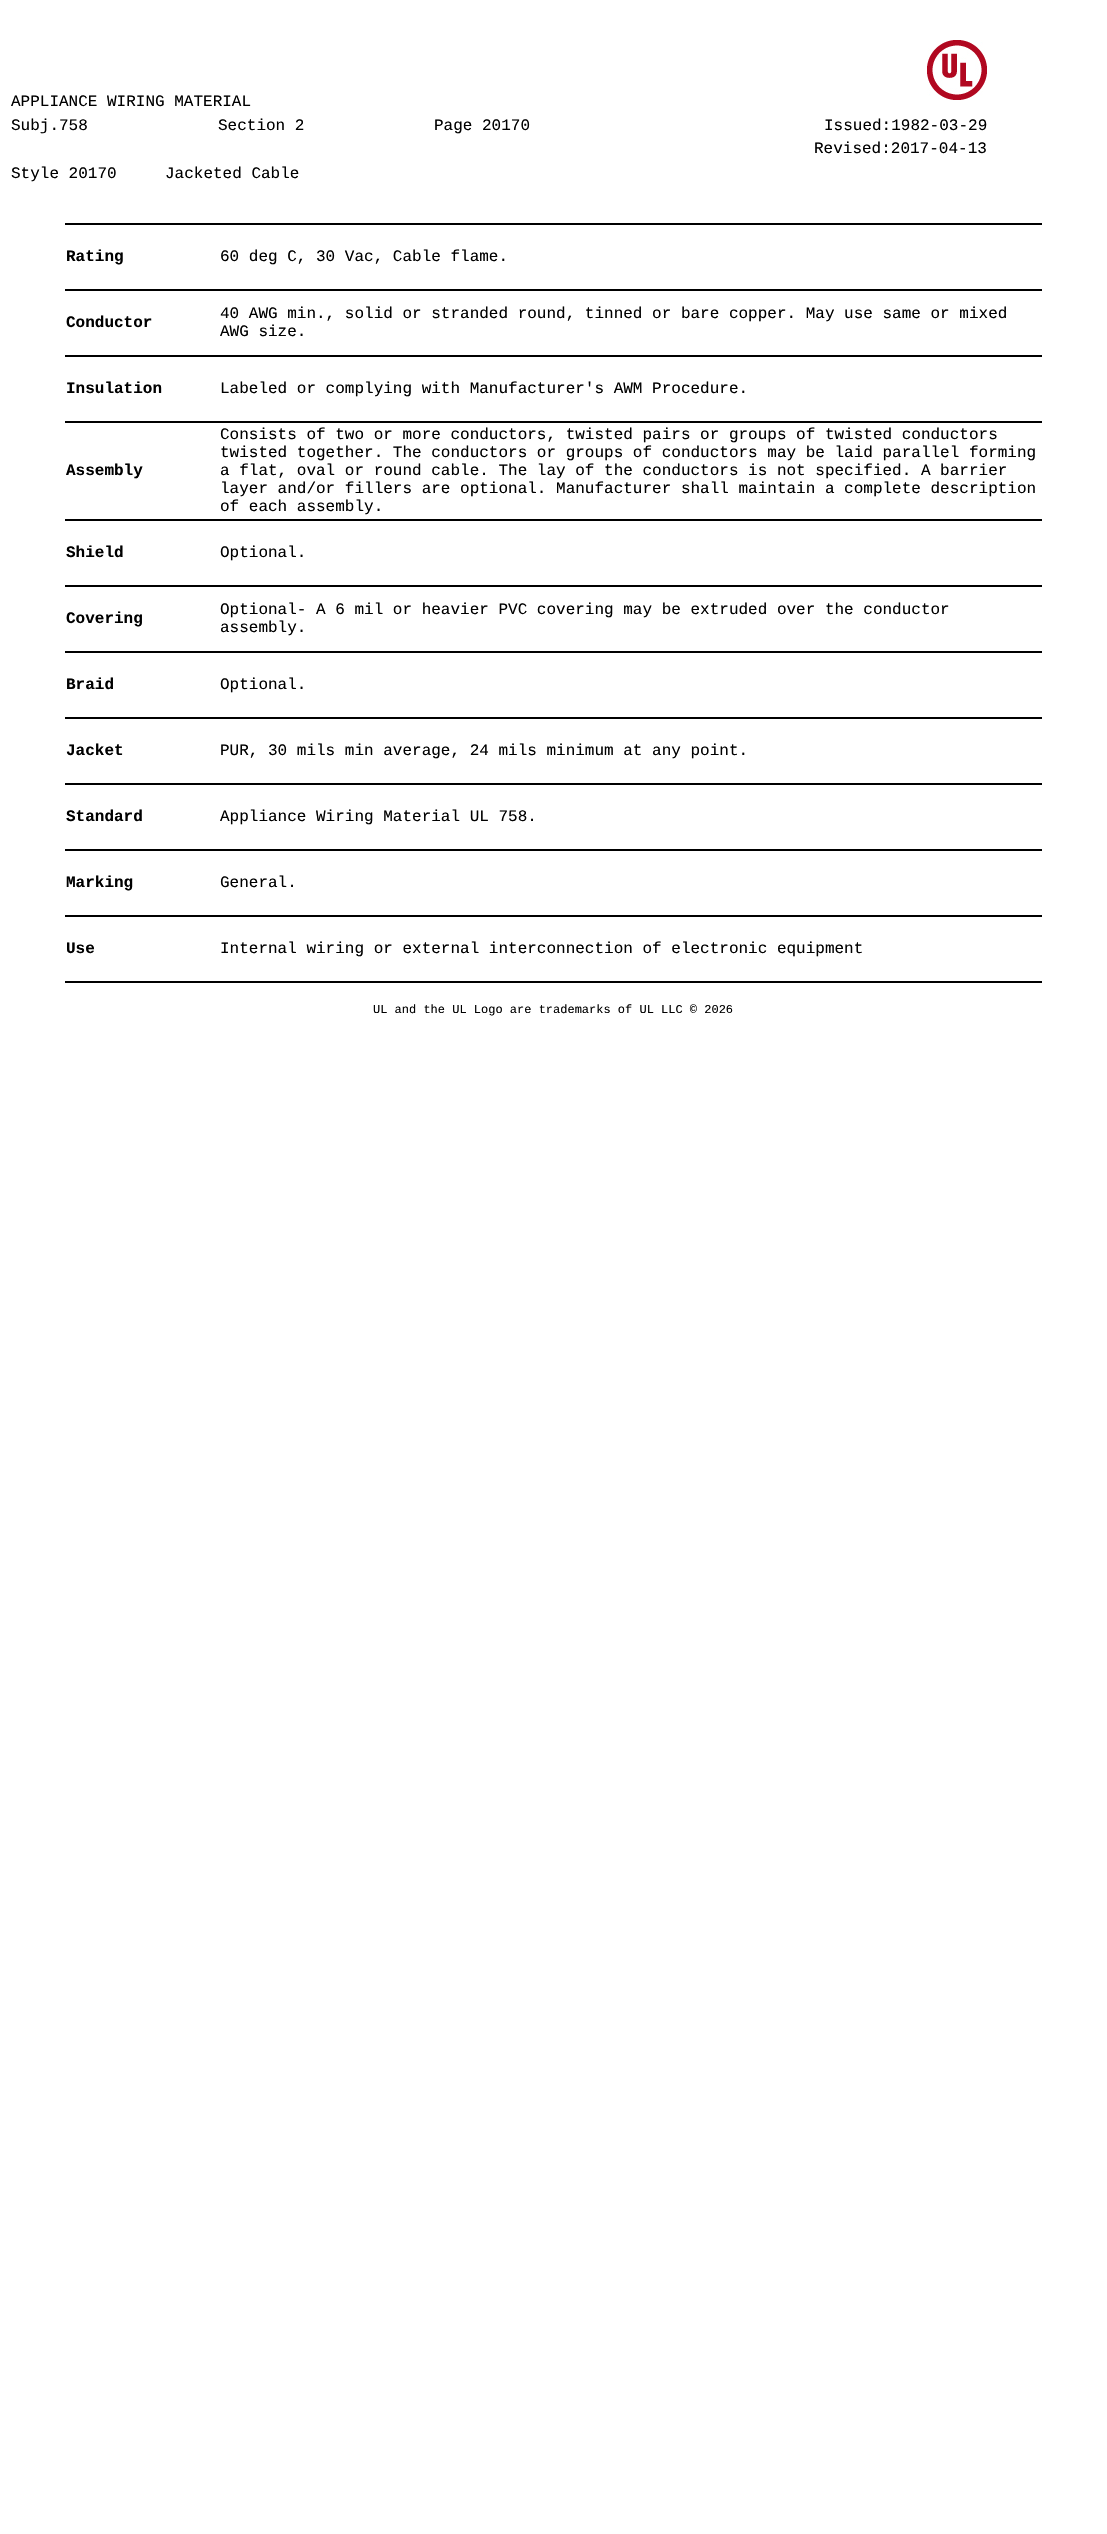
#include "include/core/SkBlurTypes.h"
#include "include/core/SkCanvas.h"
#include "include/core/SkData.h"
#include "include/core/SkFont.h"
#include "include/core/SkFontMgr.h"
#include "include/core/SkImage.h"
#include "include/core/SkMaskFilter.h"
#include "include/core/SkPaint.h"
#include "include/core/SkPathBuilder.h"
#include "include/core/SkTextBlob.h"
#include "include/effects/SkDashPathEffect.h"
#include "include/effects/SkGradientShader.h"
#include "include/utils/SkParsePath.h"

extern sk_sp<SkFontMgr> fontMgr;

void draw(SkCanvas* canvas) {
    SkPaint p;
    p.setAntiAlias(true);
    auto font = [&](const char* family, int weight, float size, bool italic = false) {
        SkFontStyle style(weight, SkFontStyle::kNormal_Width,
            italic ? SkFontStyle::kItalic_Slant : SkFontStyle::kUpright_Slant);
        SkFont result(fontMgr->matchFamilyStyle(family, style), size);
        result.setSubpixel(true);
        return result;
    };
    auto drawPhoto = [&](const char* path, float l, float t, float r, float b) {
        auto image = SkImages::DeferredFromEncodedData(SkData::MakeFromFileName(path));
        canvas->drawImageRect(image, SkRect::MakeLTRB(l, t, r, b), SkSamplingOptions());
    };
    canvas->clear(0xFFFFFFFF);
    auto font1 = font("Liberation Mono", 400, 16);
    p.setColor(0xFF000000);
    canvas->drawString("APPLIANCE WIRING MATERIAL", 11, 106, font1, p);
    drawPhoto("media/1.png", 927, 40, 987, 100);
    {
        const struct { const char* s; float x, y; } items[] = {
            {"Subj.758", 11, 130},
            {"Section 2", 218, 130},
            {"Page 20170", 434, 130},
            {"Issued:1982-03-29", 824, 130},
            {"Revised:2017-04-13", 814, 153},
            {"Style 20170", 11, 178},
            {"Jacketed Cable", 165, 178},
        };
        for (auto [s, x, y] : items) {
            canvas->drawString(s, x, y, font1, p);
        }
    }
    canvas->drawRect(SkRect::MakeLTRB(65, 223, 1042, 225), p);
    auto font2 = font("Liberation Mono", 700, 16);
    canvas->drawString("Rating", 66, 261, font2, p);
    canvas->drawString("60 deg C, 30 Vac, Cable flame.", 220, 261, font1, p);
    canvas->drawRect(SkRect::MakeLTRB(65, 289, 1042, 291), p);
    canvas->drawString("Conductor", 66, 327, font2, p);
    canvas->drawString("40 AWG min., solid or stranded round, tinned or bare copper. May use same or mixed", 220, 318, font1, p);
    canvas->drawString("AWG size.", 220, 336, font1, p);
    canvas->drawRect(SkRect::MakeLTRB(65, 355, 1042, 357), p);
    canvas->drawString("Insulation", 66, 393, font2, p);
    canvas->drawString("Labeled or complying with Manufacturer's AWM Procedure.", 220, 393, font1, p);
    canvas->drawRect(SkRect::MakeLTRB(65, 421, 1042, 423), p);
    canvas->drawString("Assembly", 66, 475, font2, p);
    {
        const struct { const char* s; float x, y; } items[] = {
            {"Consists of two or more conductors, twisted pairs or groups of twisted conductors", 220, 439},
            {"twisted together. The conductors or groups of conductors may be laid parallel forming", 220, 457},
            {"a flat, oval or round cable. The lay of the conductors is not specified. A barrier", 220, 475},
            {"layer and/or fillers are optional. Manufacturer shall maintain a complete description", 220, 493},
            {"of each assembly.", 220, 511},
        };
        for (auto [s, x, y] : items) {
            canvas->drawString(s, x, y, font1, p);
        }
    }
    canvas->drawRect(SkRect::MakeLTRB(65, 519, 1042, 521), p);
    canvas->drawString("Shield", 66, 557, font2, p);
    canvas->drawString("Optional.", 220, 557, font1, p);
    canvas->drawRect(SkRect::MakeLTRB(65, 585, 1042, 587), p);
    canvas->drawString("Covering", 66, 623, font2, p);
    canvas->drawString("Optional- A 6 mil or heavier PVC covering may be extruded over the conductor", 220, 614, font1, p);
    canvas->drawString("assembly.", 220, 632, font1, p);
    canvas->drawRect(SkRect::MakeLTRB(65, 651, 1042, 653), p);
    canvas->drawString("Braid", 66, 689, font2, p);
    canvas->drawString("Optional.", 220, 689, font1, p);
    canvas->drawRect(SkRect::MakeLTRB(65, 717, 1042, 719), p);
    canvas->drawString("Jacket", 66, 755, font2, p);
    canvas->drawString("PUR, 30 mils min average, 24 mils minimum at any point.", 220, 755, font1, p);
    canvas->drawRect(SkRect::MakeLTRB(65, 783, 1042, 785), p);
    canvas->drawString("Standard", 66, 821, font2, p);
    canvas->drawString("Appliance Wiring Material UL 758.", 220, 821, font1, p);
    canvas->drawRect(SkRect::MakeLTRB(65, 849, 1042, 851), p);
    canvas->drawString("Marking", 66, 887, font2, p);
    canvas->drawString("General.", 220, 887, font1, p);
    canvas->drawRect(SkRect::MakeLTRB(65, 915, 1042, 917), p);
    canvas->drawString("Use", 66, 953, font2, p);
    canvas->drawString("Internal wiring or external interconnection of electronic equipment", 220, 953, font1, p);
    canvas->drawRect(SkRect::MakeLTRB(65, 981, 1042, 983), p);
    auto font3 = font("Liberation Mono", 400, 12);
    canvas->drawString("UL and the UL Logo are trademarks of UL LLC © 2026", 373, 1013, font3, p);
}
